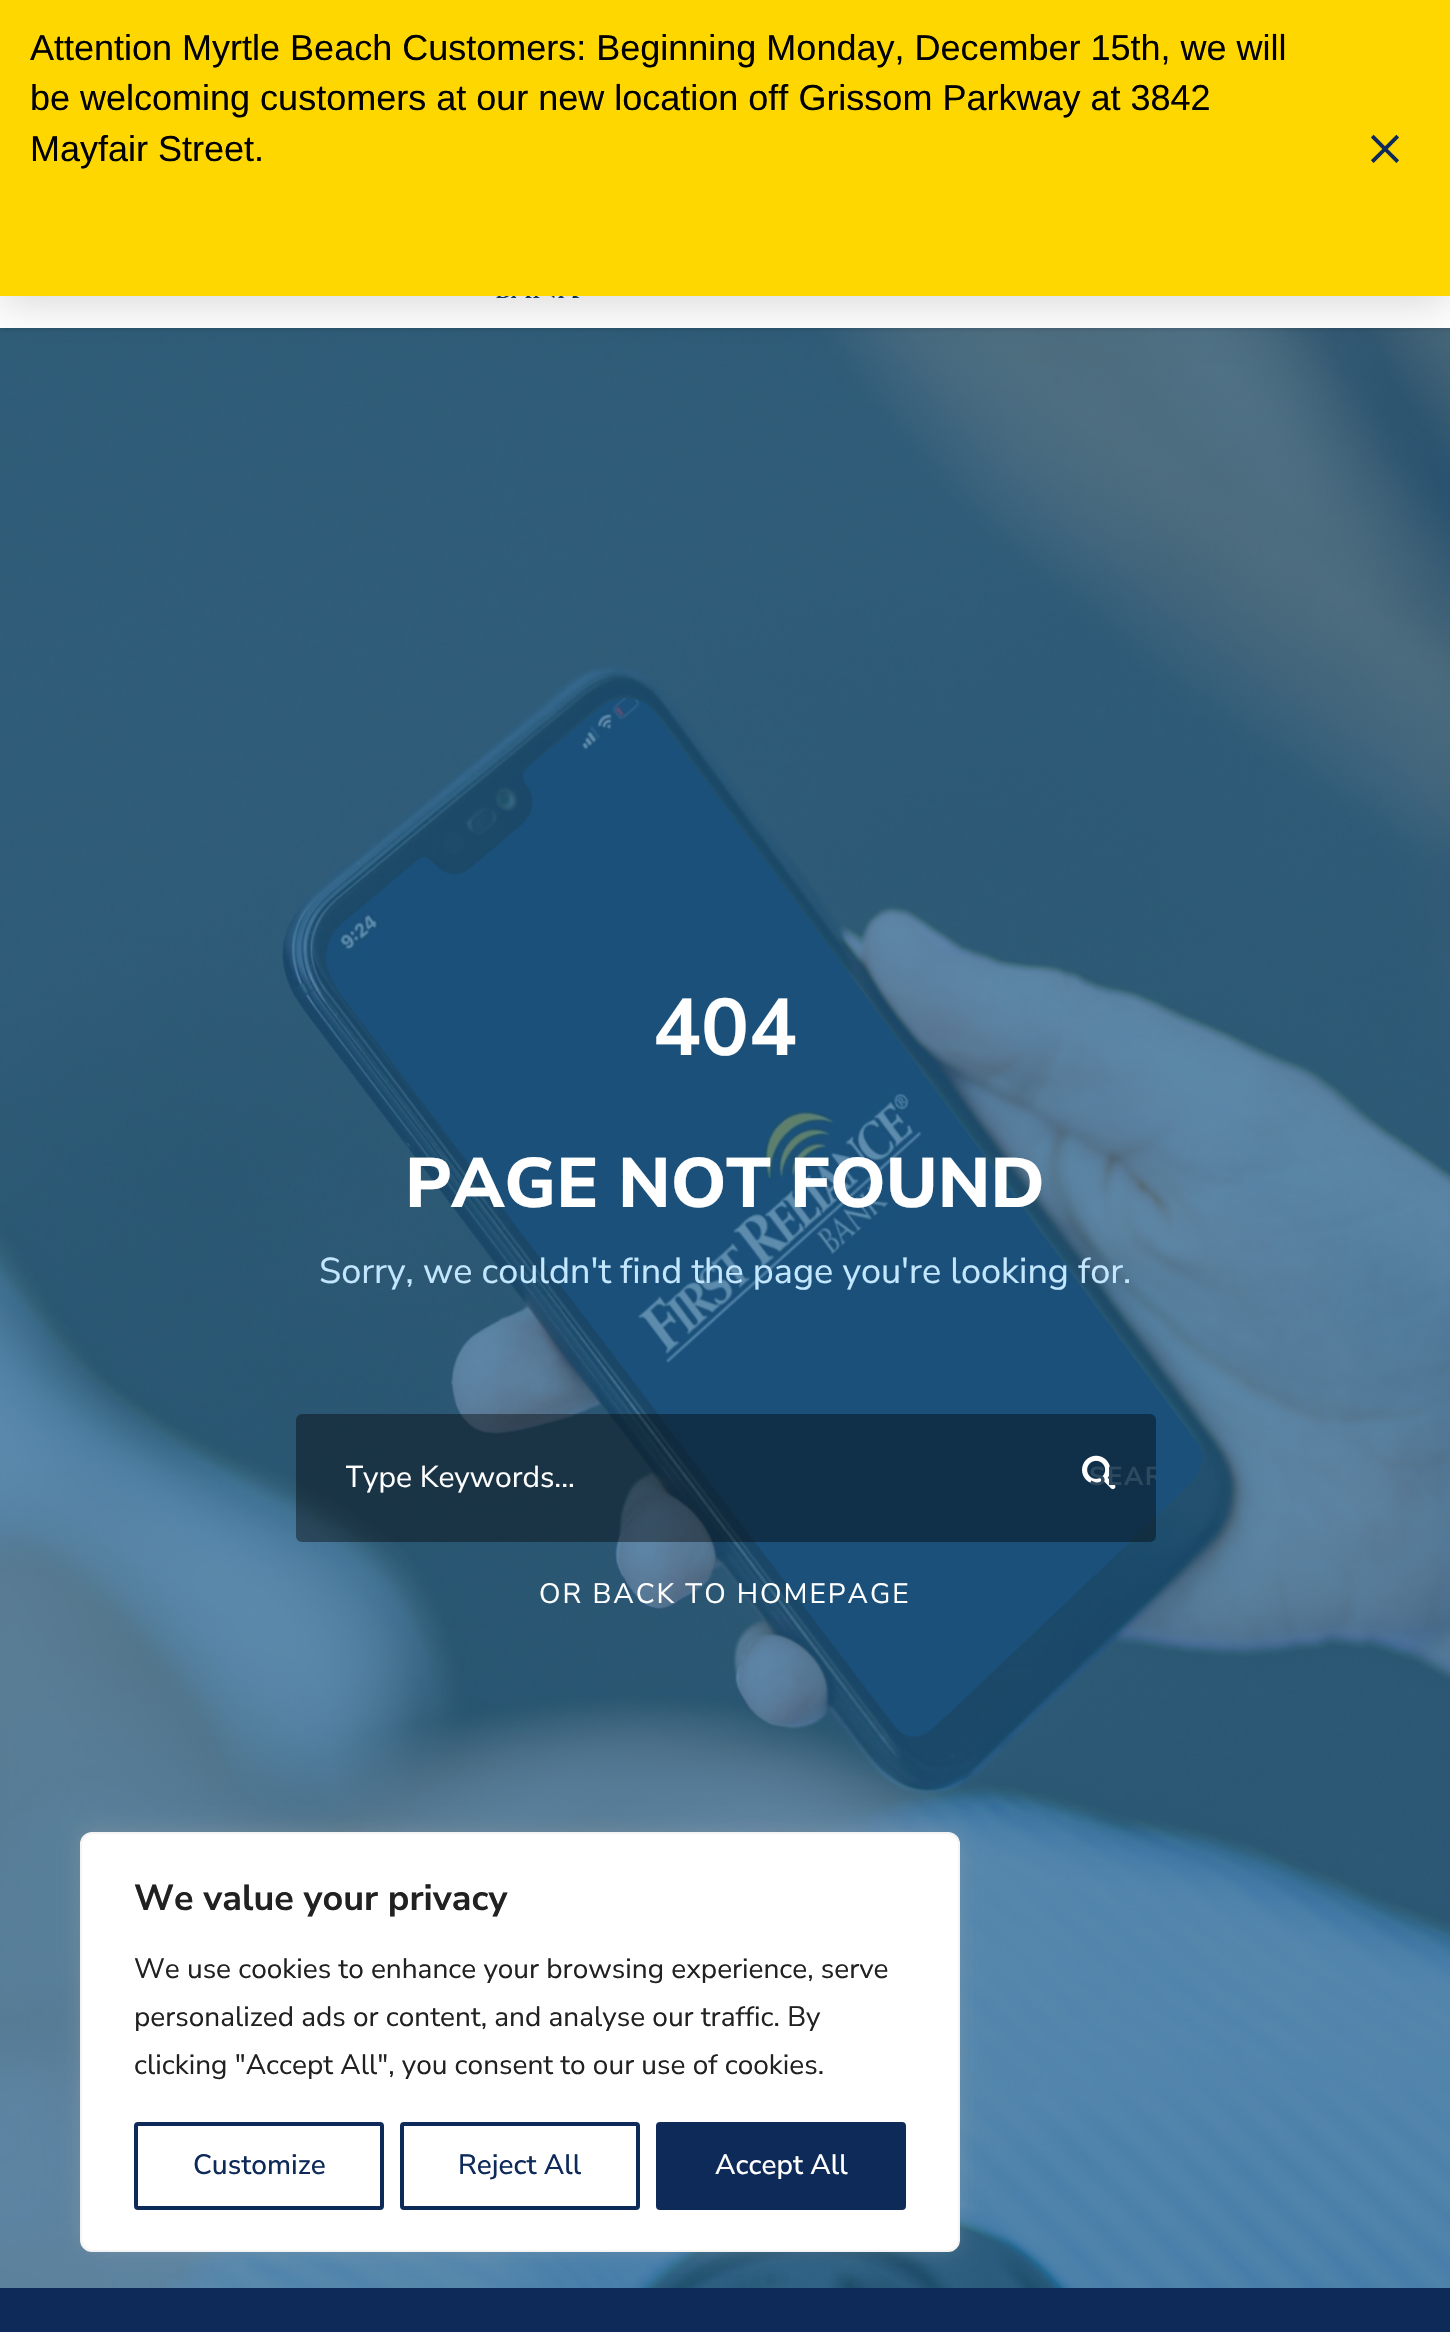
#include "include/core/SkBlurTypes.h"
#include "include/core/SkCanvas.h"
#include "include/core/SkData.h"
#include "include/core/SkFont.h"
#include "include/core/SkFontMgr.h"
#include "include/core/SkImage.h"
#include "include/core/SkMaskFilter.h"
#include "include/core/SkPaint.h"
#include "include/core/SkPathBuilder.h"
#include "include/core/SkTextBlob.h"
#include "include/effects/SkDashPathEffect.h"
#include "include/effects/SkGradientShader.h"
#include "include/utils/SkParsePath.h"

extern sk_sp<SkFontMgr> fontMgr;

void draw(SkCanvas* canvas) {
    SkPaint p;
    p.setAntiAlias(true);
    auto font = [&](const char* family, int weight, float size, bool italic = false) {
        SkFontStyle style(weight, SkFontStyle::kNormal_Width,
            italic ? SkFontStyle::kItalic_Slant : SkFontStyle::kUpright_Slant);
        SkFont result(fontMgr->matchFamilyStyle(family, style), size);
        result.setSubpixel(true);
        return result;
    };
    auto drawTracked = [&](const char* s, float x, float y, const SkFont& font, const SkPaint& ink, float letter, float word) {
        std::vector<SkGlyphID> glyphs(font.countText(s, strlen(s), SkTextEncoding::kUTF8));
        std::vector<float> xs(glyphs.size());
        font.textToGlyphs(s, strlen(s), SkTextEncoding::kUTF8, glyphs);
        font.getXPos(glyphs, xs, x);
        float extra = 0;
        for (size_t i = 0; i < glyphs.size(); i++) {
            xs[i] += extra;
            extra += letter + word * (glyphs[i] == font.unicharToGlyph(' '));
        }
        canvas->drawTextBlob(SkTextBlob::MakeFromPosHGlyphs(glyphs, xs, y, font), 0, 0, ink);
    };
    auto drawPhoto = [&](const char* path, float l, float t, float r, float b) {
        auto image = SkImages::DeferredFromEncodedData(SkData::MakeFromFileName(path));
        canvas->drawImageRect(image, SkRect::MakeLTRB(l, t, r, b), SkSamplingOptions());
    };
    canvas->clear(0xFFFFFFFF);
    p.setColor(0xFF23618E);
    canvas->drawRect(SkRect::MakeLTRB(0, 328, 1450, 2288), p);
    drawPhoto("media/2.png", 0, 328, 1450, 2288);
    canvas->save();
    canvas->clipRect(SkRect::MakeLTRB(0, 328, 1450, 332));
    p.setColor(0x1A000000);
    p.setMaskFilter(SkMaskFilter::MakeBlur(kNormal_SkBlurStyle, 2));
    canvas->drawRect(SkRect::MakeLTRB(0, 150, 1450, 330), p);
    p.setMaskFilter(nullptr);
    canvas->restore();
    drawPhoto("media/1.png", 496, 296, 580, 298);
    p.setColor(0x26000000);
    p.setMaskFilter(SkMaskFilter::MakeBlur(kNormal_SkBlurStyle, 20));
    canvas->drawRect(SkRect::MakeLTRB(0, 8, 1450, 304), p);
    p.setMaskFilter(nullptr);
    p.setColor(0xFFFFD700);
    canvas->drawRect(SkRect::MakeLTRB(0, 0, 1450, 296), p);
    auto font1 = font("Liberation Sans", 400, 36);
    p.setColor(0xFF000000);
    {
        const struct { const char* s; float x, y; } items[] = {
            {"Attention Myrtle Beach Customers: Beginning Monday, December 15th, we will", 30, 60},
            {"be welcoming customers at our new location off Grissom Parkway at 3842", 30, 110},
            {"Mayfair Street.", 30, 161},
        };
        for (auto [s, x, y] : items) {
            canvas->drawString(s, x, y, font1, p);
        }
    }
    auto font2 = font("Nunito Sans", 400, 60);
    p.setColor(0xFF0E2A59);
    canvas->drawString("×", 1367, 166, font2, p);
    auto font3 = font("Nunito Sans", 700, 80);
    p.setColor(0xFFFFFFFF);
    canvas->drawString("404", 653, 1055, font3, p);
    auto font4 = font("Nunito Sans", 800, 70);
    canvas->drawString("PAGE NOT FOUND", 405, 1207, font4, p);
    auto font5 = font("Nunito Sans", 400, 36);
    p.setColor(0xFFC3E7FF);
    canvas->drawString("Sorry, we couldn't find the page you're looking for.", 319, 1283, font5, p);
    p.setColor(0x66000000);
    canvas->drawRoundRect(SkRect::MakeLTRB(296, 1414, 1156, 1542), 6, 6, p);
    canvas->save();
    canvas->clipRect(SkRect::MakeLTRB(346, 1458, 1036, 1498));
    auto font6 = font("Nunito Sans", 400, 30);
    p.setColor(0xFFFFFFFF);
    canvas->drawString("Type Keywords...", 345, 1487, font6, p);
    canvas->restore();
    drawPhoto("media/3.png", 1082, 1455, 1116, 1490);
    canvas->save();
    canvas->clipRect(SkRect::MakeLTRB(1024, 1414, 1156, 1542));
    auto font7 = font("Nunito Sans", 700, 26);
    p.setColor(0xFF2C495F);
    drawTracked("SEAR", 1089, 1485, font7, p, 1.5f, 0);
    canvas->restore();
    auto font8 = font("Nunito Sans", 400, 28);
    p.setColor(0xFFFFFFFF);
    drawTracked("OR BACK TO HOMEPAGE", 539, 1603, font8, p, 2, 0);
    p.setColor(0xFF0E2A59);
    canvas->drawRect(SkRect::MakeLTRB(0, 2288, 1450, 2332), p);
    p.setColor(0x4DACABAB);
    p.setMaskFilter(SkMaskFilter::MakeBlur(kNormal_SkBlurStyle, 10));
    canvas->drawRoundRect(SkRect::MakeLTRB(80, 1830, 960, 2250), 12, 12, p);
    p.setMaskFilter(nullptr);
    p.setColor(0xFFFFFFFF);
    canvas->drawRoundRect(SkRect::MakeLTRB(81, 1833, 959, 2251), 11, 11, p);
    p.setStyle(SkPaint::kStroke_Style);
    p.setStrokeWidth(2);
    p.setColor(0xFFF4F4F4);
    canvas->drawRoundRect(SkRect::MakeLTRB(81, 1833, 959, 2251), 11, 11, p);
    auto font9 = font("Nunito Sans", 700, 36);
    p.setStyle(SkPaint::kFill_Style);
    p.setColor(0xFF212121);
    canvas->drawString("We value your privacy", 134, 1910, font9, p);
    {
        const struct { const char* s; float x, y; } items[] = {
            {"We use cookies to enhance your browsing experience, serve", 134, 1978},
            {"personalized ads or content, and analyse our traffic. By", 134, 2026},
            {"clicking \"Accept All\", you consent to our use of cookies.", 134, 2074},
        };
        for (auto [s, x, y] : items) {
            canvas->drawString(s, x, y, font8, p);
        }
    }
    p.setStyle(SkPaint::kStroke_Style);
    p.setStrokeWidth(4);
    p.setColor(0xFF0E2A59);
    canvas->drawRoundRect(SkRect::MakeLTRB(136, 2124, 382, 2208), 2, 2, p);
    auto font10 = font("Nunito Sans", 500, 28);
    p.setStyle(SkPaint::kFill_Style);
    canvas->drawString("Customize", 193, 2174, font10, p);
    p.setStyle(SkPaint::kStroke_Style);
    canvas->drawRoundRect(SkRect::MakeLTRB(402, 2124, 638, 2208), 2, 2, p);
    p.setStyle(SkPaint::kFill_Style);
    canvas->drawString("Reject All", 458, 2174, font10, p);
    canvas->drawRoundRect(SkRect::MakeLTRB(658, 2124, 904, 2208), 2, 2, p);
    p.setStyle(SkPaint::kStroke_Style);
    canvas->drawRoundRect(SkRect::MakeLTRB(658, 2124, 904, 2208), 2, 2, p);
    p.setStyle(SkPaint::kFill_Style);
    p.setColor(0xFFFFFFFF);
    canvas->drawString("Accept All", 715, 2174, font10, p);
}
